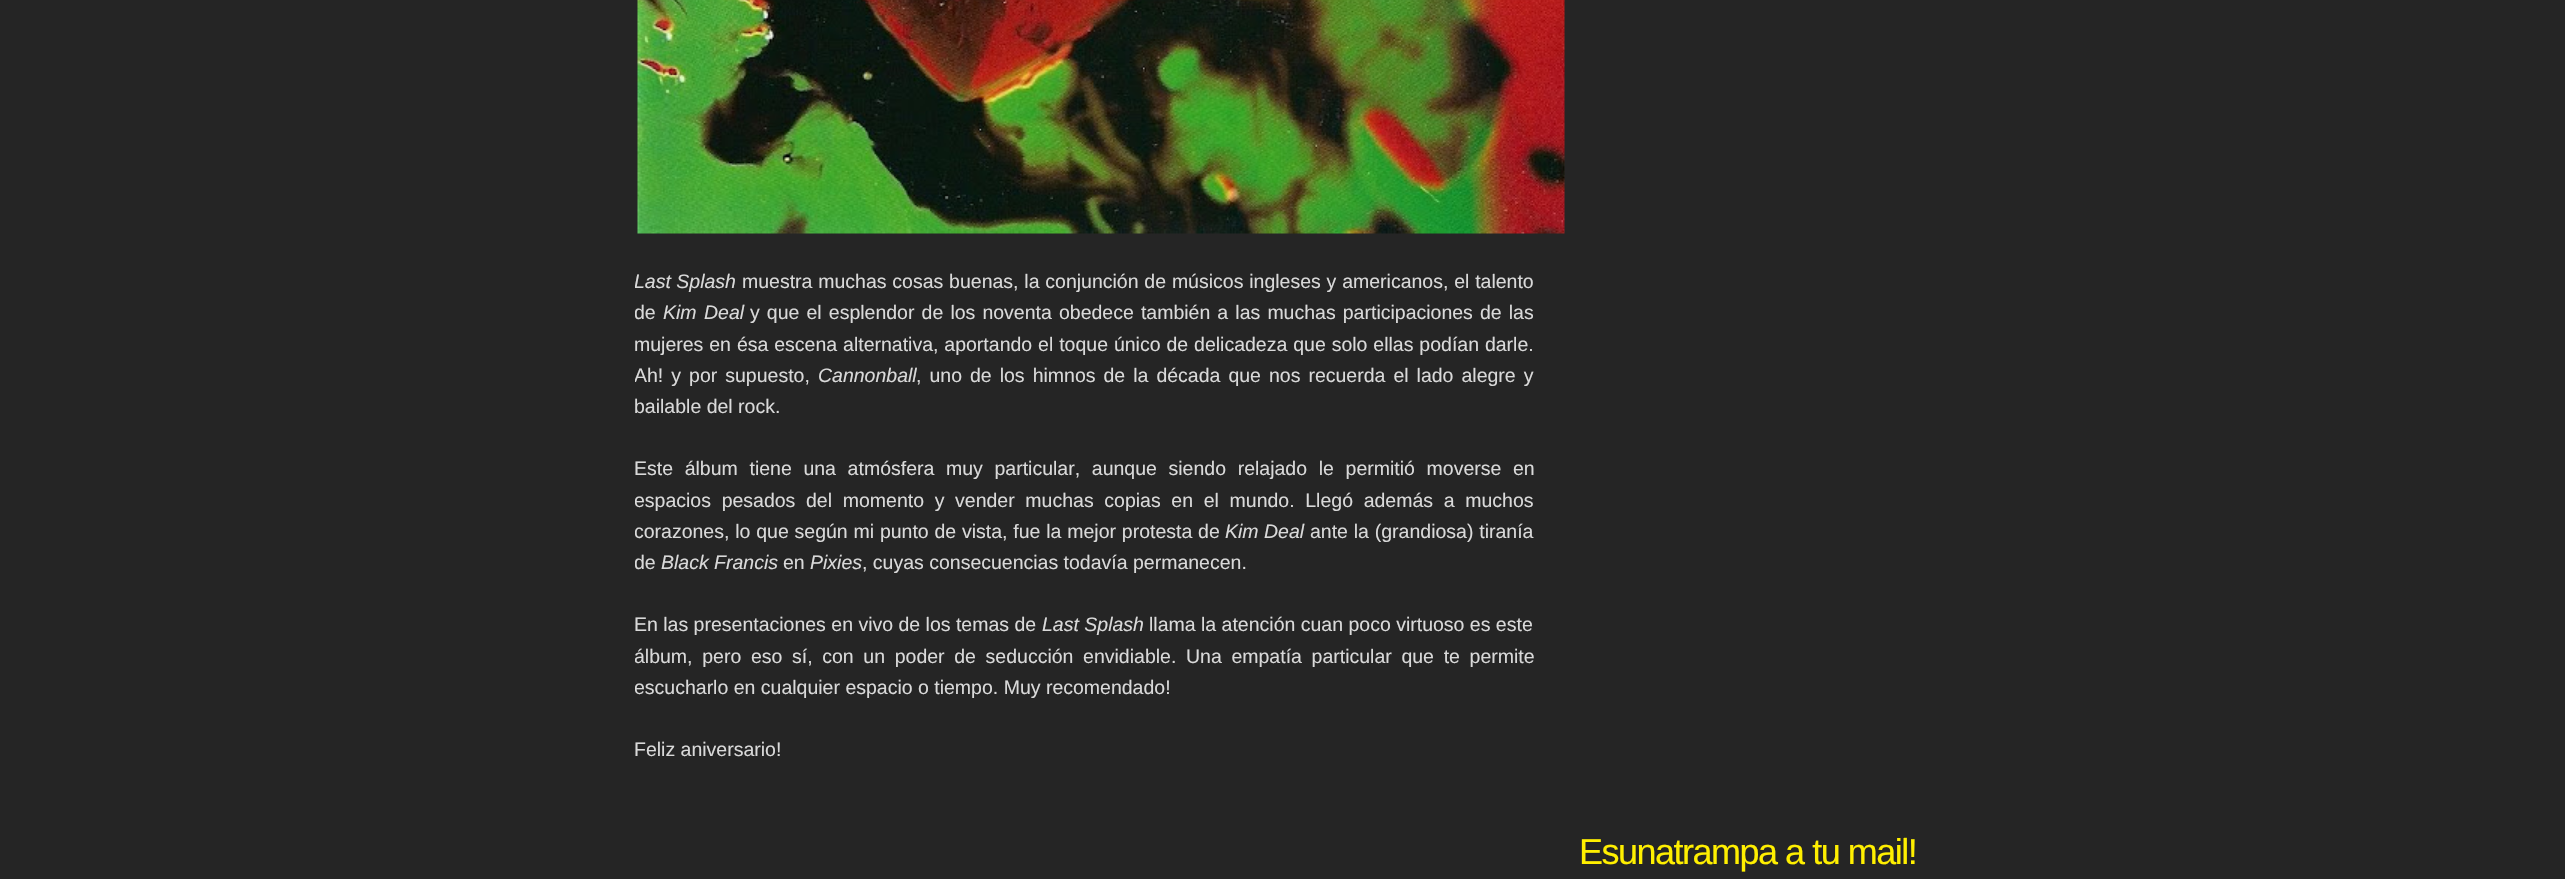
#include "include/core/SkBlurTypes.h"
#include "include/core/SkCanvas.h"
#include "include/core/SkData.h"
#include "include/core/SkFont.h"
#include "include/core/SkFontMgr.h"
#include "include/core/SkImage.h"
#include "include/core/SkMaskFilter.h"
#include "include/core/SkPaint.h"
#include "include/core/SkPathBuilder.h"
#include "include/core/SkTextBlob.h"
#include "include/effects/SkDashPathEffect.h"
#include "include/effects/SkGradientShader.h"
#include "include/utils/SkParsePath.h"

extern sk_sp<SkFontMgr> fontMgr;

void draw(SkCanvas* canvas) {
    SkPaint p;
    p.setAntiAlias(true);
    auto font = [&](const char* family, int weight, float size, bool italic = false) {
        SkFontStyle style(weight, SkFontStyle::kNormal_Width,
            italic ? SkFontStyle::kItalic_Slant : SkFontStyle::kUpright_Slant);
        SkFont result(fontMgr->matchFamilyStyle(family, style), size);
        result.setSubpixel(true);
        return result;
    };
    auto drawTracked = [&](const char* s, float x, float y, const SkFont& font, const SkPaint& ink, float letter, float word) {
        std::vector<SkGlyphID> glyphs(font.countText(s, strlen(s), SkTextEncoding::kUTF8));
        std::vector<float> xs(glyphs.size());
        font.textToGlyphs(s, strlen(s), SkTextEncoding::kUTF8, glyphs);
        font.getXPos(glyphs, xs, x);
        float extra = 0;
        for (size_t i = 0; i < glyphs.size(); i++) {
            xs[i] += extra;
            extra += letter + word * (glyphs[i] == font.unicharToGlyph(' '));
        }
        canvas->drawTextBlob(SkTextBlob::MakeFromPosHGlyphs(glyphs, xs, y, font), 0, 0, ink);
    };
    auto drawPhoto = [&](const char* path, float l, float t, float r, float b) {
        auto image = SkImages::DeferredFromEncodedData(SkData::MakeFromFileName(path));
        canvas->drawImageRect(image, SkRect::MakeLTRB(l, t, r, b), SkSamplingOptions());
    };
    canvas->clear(0xFF252525);
    drawPhoto("media/1.png", 637, 0, 1565, 234);
    canvas->save();
    canvas->clipRect(SkRect::MakeLTRB(635, 0, 1565, 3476));
    auto font1 = font("Liberation Sans", 400, 19.5f, true);
    p.setColor(0xFFD9D9D9);
    canvas->drawString("Last Splash", 634, 288, font1, p);
    canvas->restore();
    auto font2 = font("Liberation Sans", 400, 19.5f);
    drawTracked("muestra muchas cosas buenas, la conjunción de músicos ingleses y americanos, el talento", 742, 288, font2, p, 0, 0.4f);
    canvas->save();
    canvas->clipRect(SkRect::MakeLTRB(635, 0, 1565, 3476));
    canvas->drawString("de", 634, 319, font2, p);
    canvas->restore();
    drawTracked("Kim Deal", 663, 319, font1, p, 0, 2);
    drawTracked("y que el esplendor de los noventa obedece también a las muchas participaciones de las", 750, 319, font2, p, 0, 1.7f);
    drawTracked("mujeres en ésa escena alternativa, aportando el toque único de delicadeza que solo ellas podían darle.", 634, 351, font2, p, 0, 0.5f);
    canvas->save();
    canvas->clipRect(SkRect::MakeLTRB(635, 0, 1565, 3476));
    drawTracked("Ah! y por supuesto,", 634, 382, font2, p, 0, 2.6f);
    canvas->restore();
    canvas->drawString("Cannonball", 818, 382, font1, p);
    drawTracked(", uno de los himnos de la década que nos recuerda el lado alegre y", 916, 382, font2, p, 0, 2.6f);
    canvas->drawString("bailable del rock.", 634, 413, font2, p);
    drawTracked("Este álbum tiene una atmósfera muy particular, aunque siendo relajado le permitió moverse en", 634, 475, font2, p, 0, 6.25f);
    canvas->save();
    canvas->clipRect(SkRect::MakeLTRB(635, 0, 1565, 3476));
    drawTracked("espacios pesados del momento y vender muchas copias en el mundo. Llegó además a muchos", 634, 507, font2, p, 0, 5.25f);
    drawTracked("corazones, lo que según mi punto de vista, fue la mejor protesta de", 634, 538, font2, p, 0, 0.4f);
    canvas->restore();
    canvas->drawString("Kim Deal", 1225, 538, font1, p);
    drawTracked("ante la (grandiosa) tiranía", 1310, 538, font2, p, 0, 0.4f);
    canvas->save();
    canvas->clipRect(SkRect::MakeLTRB(635, 0, 1565, 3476));
    canvas->drawString("de", 634, 569, font2, p);
    canvas->restore();
    canvas->drawString("Black Francis", 661, 569, font1, p);
    canvas->drawString("en", 783, 569, font2, p);
    canvas->drawString("Pixies", 810, 569, font1, p);
    canvas->drawString(", cuyas consecuencias todavía permanecen.", 862, 569, font2, p);
    canvas->drawString("En las presentaciones en vivo de los temas de", 634, 631, font2, p);
    canvas->drawString("Last Splash", 1042, 631, font1, p);
    canvas->drawString("llama la atención cuan poco virtuoso es este", 1149, 631, font2, p);
    canvas->save();
    canvas->clipRect(SkRect::MakeLTRB(635, 0, 1565, 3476));
    drawTracked("álbum, pero eso sí, con un poder de seducción envidiable. Una empatía particular que te permite", 634, 663, font2, p, 0, 4.25f);
    canvas->drawString("escucharlo en cualquier espacio o tiempo. Muy recomendado!", 634, 694, font2, p);
    canvas->restore();
    canvas->drawString("Feliz aniversario!", 634, 756, font2, p);
    auto font3 = font("Liberation Sans", 400, 36);
    p.setColor(0xFFFFEF00);
    drawTracked("Esunatrampa a tu mail!", 1579, 864, font3, p, -1.5f, 0);
}
